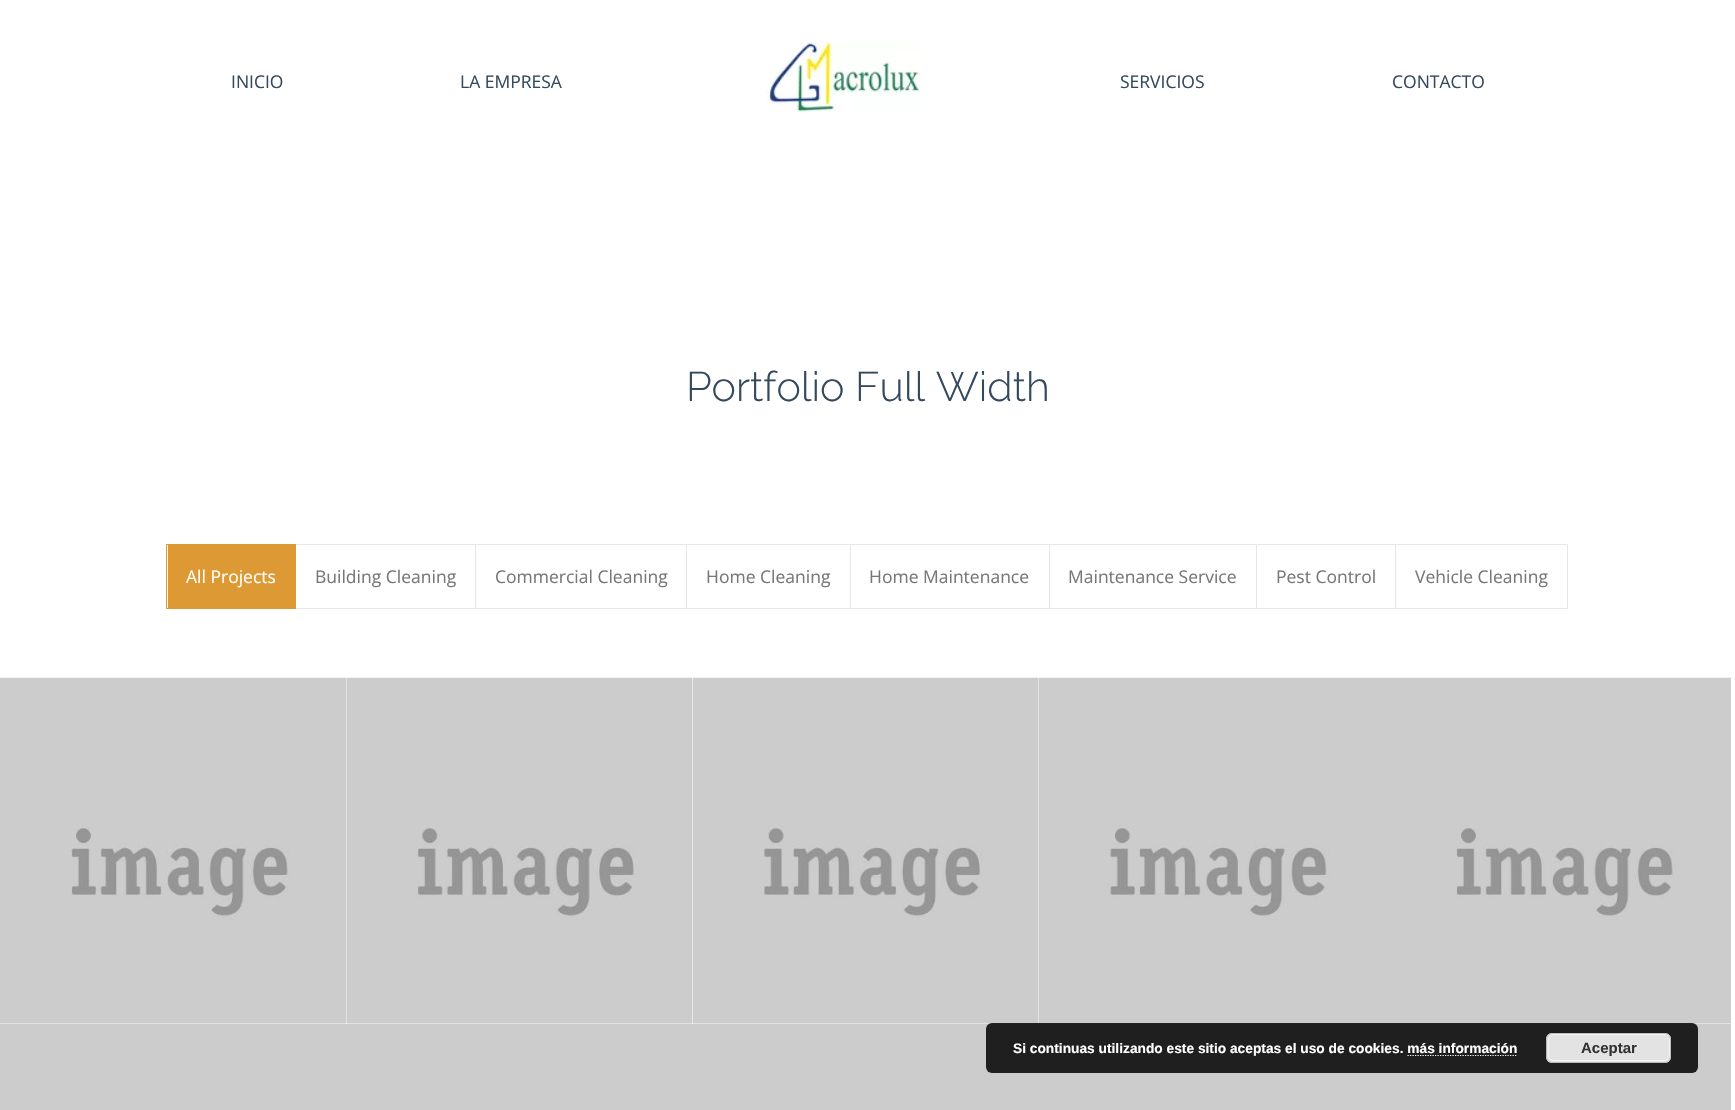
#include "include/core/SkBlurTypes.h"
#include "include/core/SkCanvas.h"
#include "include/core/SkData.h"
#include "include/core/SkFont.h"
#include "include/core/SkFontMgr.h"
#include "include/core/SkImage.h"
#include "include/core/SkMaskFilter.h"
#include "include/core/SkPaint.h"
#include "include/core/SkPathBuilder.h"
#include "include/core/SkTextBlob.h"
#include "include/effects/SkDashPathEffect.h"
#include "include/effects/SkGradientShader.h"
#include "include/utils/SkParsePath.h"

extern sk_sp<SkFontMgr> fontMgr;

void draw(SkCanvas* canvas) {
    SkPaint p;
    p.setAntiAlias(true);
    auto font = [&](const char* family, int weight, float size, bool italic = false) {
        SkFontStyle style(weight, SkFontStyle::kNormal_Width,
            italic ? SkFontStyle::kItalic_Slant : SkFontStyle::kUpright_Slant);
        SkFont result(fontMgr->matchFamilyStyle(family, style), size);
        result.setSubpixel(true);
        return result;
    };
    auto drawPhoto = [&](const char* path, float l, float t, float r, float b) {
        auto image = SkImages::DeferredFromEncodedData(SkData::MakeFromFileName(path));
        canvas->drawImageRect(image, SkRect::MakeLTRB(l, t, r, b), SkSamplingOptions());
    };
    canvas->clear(0xFFFFFFFF);
    auto font1 = font("Open Sans", 400, 17.5f);
    p.setColor(0xFF35495D);
    canvas->drawString("INICIO", 231, 88, font1, p);
    canvas->drawString("LA EMPRESA", 460, 88, font1, p);
    drawPhoto("media/1.png", 766, 41, 921, 113);
    canvas->drawString("SERVICIOS", 1120, 88, font1, p);
    canvas->drawString("CONTACTO", 1392, 88, font1, p);
    auto font2 = font("Raleway", 100, 41.25f);
    canvas->drawString("Portfolio Full Width", 686, 401, font2, p);
    p.setColor(0xFFE4E8E9);
    canvas->drawRect(SkRect::MakeLTRB(295, 544, 1395, 545), p);
    canvas->drawRect(SkRect::MakeLTRB(295, 608, 1395, 609), p);
    p.setStyle(SkPaint::kStroke_Style);
    p.setStrokeWidth(1);
    p.setColor(0xFFDD9933);
    canvas->drawRect(SkRect::MakeLTRB(166.5f, 544.5f, 295.5f, 608.5f), p);
    p.setStyle(SkPaint::kFill_Style);
    canvas->drawRect(SkRect::MakeLTRB(168, 545, 295, 608), p);
    p.setColor(0xFFFFFFFF);
    canvas->drawString("All Projects", 186, 583, font1, p);
    p.setColor(0xFF777777);
    canvas->drawString("Building Cleaning", 315, 583, font1, p);
    p.setColor(0xFFE4E8E9);
    canvas->drawRect(SkRect::MakeLTRB(475, 544, 476, 609), p);
    p.setColor(0xFF777777);
    canvas->drawString("Commercial Cleaning", 495, 583, font1, p);
    p.setColor(0xFFE4E8E9);
    canvas->drawRect(SkRect::MakeLTRB(686, 544, 687, 609), p);
    p.setColor(0xFF777777);
    canvas->drawString("Home Cleaning", 706, 583, font1, p);
    p.setColor(0xFFE4E8E9);
    canvas->drawRect(SkRect::MakeLTRB(850, 544, 851, 609), p);
    p.setColor(0xFF777777);
    canvas->drawString("Home Maintenance", 869, 583, font1, p);
    p.setColor(0xFFE4E8E9);
    canvas->drawRect(SkRect::MakeLTRB(1049, 544, 1050, 609), p);
    p.setColor(0xFF777777);
    canvas->drawString("Maintenance Service", 1068, 583, font1, p);
    p.setColor(0xFFE4E8E9);
    canvas->drawRect(SkRect::MakeLTRB(1256, 544, 1257, 609), p);
    p.setColor(0xFF777777);
    canvas->drawString("Pest Control", 1276, 583, font1, p);
    p.setStyle(SkPaint::kStroke_Style);
    p.setColor(0xFFE4E8E9);
    canvas->drawRect(SkRect::MakeLTRB(1395.5f, 544.5f, 1567.5f, 608.5f), p);
    p.setStyle(SkPaint::kFill_Style);
    p.setColor(0xFF777777);
    canvas->drawString("Vehicle Cleaning", 1415, 583, font1, p);
    drawPhoto("media/2.png", 0, 677, 346, 1024);
    drawPhoto("media/3.png", 346, 677, 693, 1024);
    drawPhoto("media/4.png", 692, 677, 1039, 1024);
    drawPhoto("media/5.png", 1039, 677, 1385, 1024);
    drawPhoto("media/2.png", 1385, 677, 1731, 1024);
    p.setColor(0xFFCCCCCC);
    canvas->drawRect(SkRect::MakeLTRB(0, 1024, 1731, 1110), p);
    p.setColor(0xD9000000);
    canvas->drawRoundRect(SkRect::MakeLTRB(986, 1023, 1698, 1073), 6, 6, p);
    auto font3 = font("Liberation Sans", 700, 13.75f);
    p.setColor(0xFFFFFFFF);
    canvas->drawString("Si continuas utilizando este sitio aceptas el uso de cookies. más información", 1013, 1053, font3, p);
    p.setColor(0xFFE3E3E3);
    canvas->drawRoundRect(SkRect::MakeLTRB(1546, 1033, 1671, 1063), 6, 6, p);
    p.setStyle(SkPaint::kStroke_Style);
    p.setColor(0xFFF6F6F6);
    canvas->drawRoundRect(SkRect::MakeLTRB(1548.5f, 1034.5f, 1669.5f, 1060.5f), 4.5f, 4.5f, p);
    p.setColor(0xFFBBBBBB);
    canvas->drawRoundRect(SkRect::MakeLTRB(1546.5f, 1033.5f, 1670.5f, 1062.5f), 5.5f, 5.5f, p);
    auto font4 = font("Liberation Sans", 700, 15);
    p.setStyle(SkPaint::kFill_Style);
    p.setColor(0xFF333333);
    canvas->drawString("Aceptar", 1581, 1053, font4, p);
    p.setStyle(SkPaint::kStroke_Style);
    p.setStrokeWidth(1.2f);
    p.setColor(0xFFFFFFFF);
    p.setPathEffect(SkDashPathEffect::Make({{1.25f, 1.25f}}, 0));
    canvas->drawPath(SkPathBuilder().moveTo(1407.5f, 1055.5f).lineTo(1517.5f, 1055.5f).detach(), p);
    p.setPathEffect(nullptr);
}
